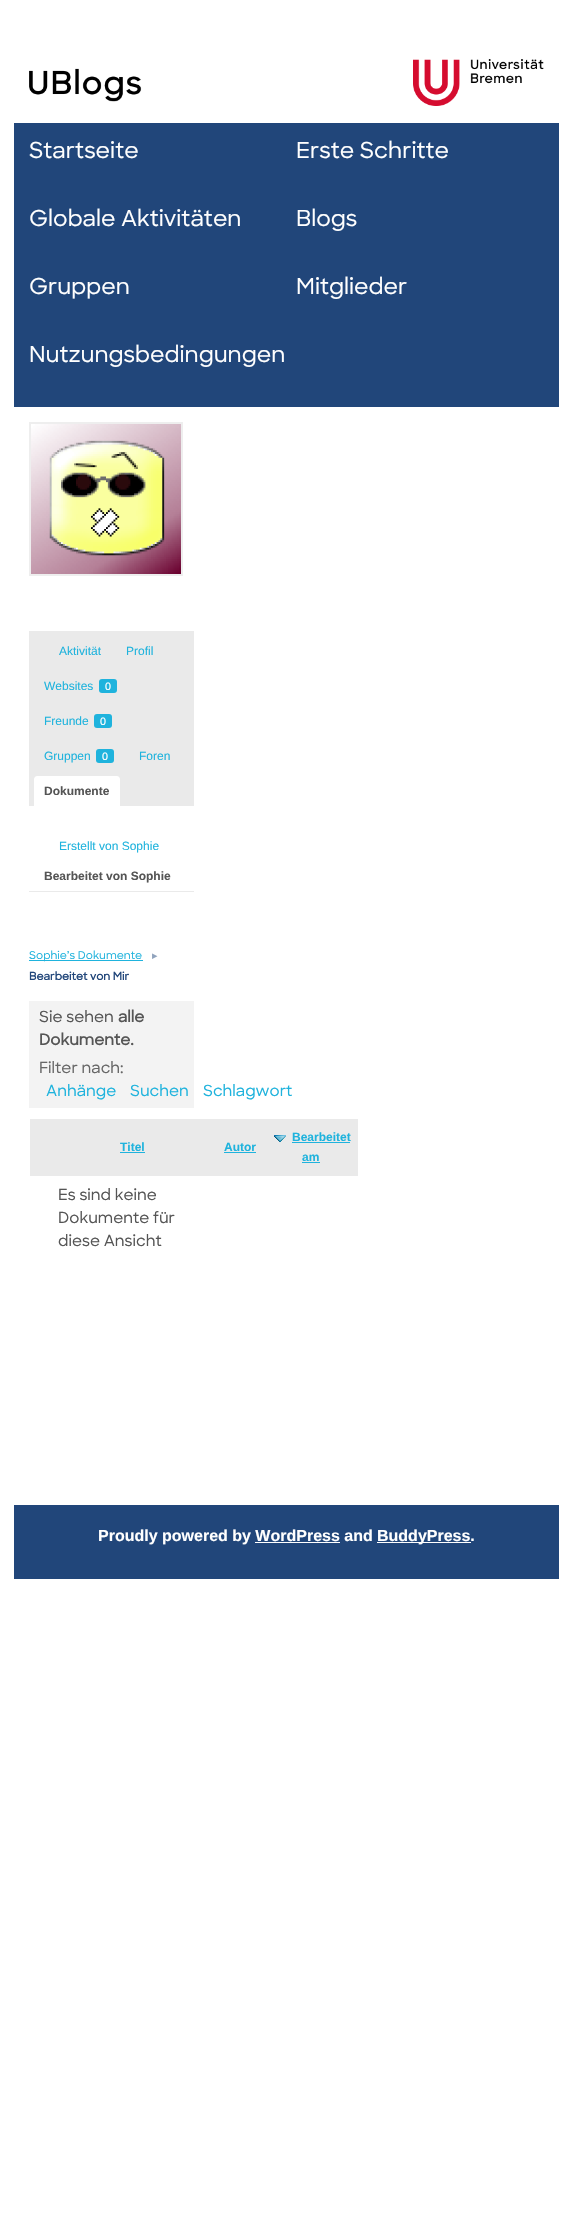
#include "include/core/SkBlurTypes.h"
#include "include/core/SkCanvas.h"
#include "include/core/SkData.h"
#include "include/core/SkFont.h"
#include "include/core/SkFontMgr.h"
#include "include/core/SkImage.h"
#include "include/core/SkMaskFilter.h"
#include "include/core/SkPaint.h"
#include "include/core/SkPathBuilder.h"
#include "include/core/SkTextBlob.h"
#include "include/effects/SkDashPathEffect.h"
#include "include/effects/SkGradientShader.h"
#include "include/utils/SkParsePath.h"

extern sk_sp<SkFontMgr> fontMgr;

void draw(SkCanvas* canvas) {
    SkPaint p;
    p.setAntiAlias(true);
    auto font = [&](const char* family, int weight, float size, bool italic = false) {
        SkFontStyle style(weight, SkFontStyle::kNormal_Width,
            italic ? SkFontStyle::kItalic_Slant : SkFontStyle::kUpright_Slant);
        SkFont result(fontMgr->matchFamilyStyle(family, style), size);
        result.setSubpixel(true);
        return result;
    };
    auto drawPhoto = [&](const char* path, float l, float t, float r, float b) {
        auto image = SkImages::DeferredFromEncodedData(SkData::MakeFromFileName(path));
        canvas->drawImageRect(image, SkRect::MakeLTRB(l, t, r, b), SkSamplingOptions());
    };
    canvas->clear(0xFFFFFFFF);
    p.setColor(0xFF21467A);
    canvas->drawRect(SkRect::MakeLTRB(14, 123, 559, 407), p);
    auto font1 = font("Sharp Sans", 500, 22);
    p.setColor(0xFFFFFFFF);
    {
        const struct { const char* s; float x, y; } items[] = {
            {"Startseite", 29, 158},
            {"Erste Schritte", 296, 158},
            {"Globale Aktivitäten", 29, 226},
            {"Blogs", 296, 226},
            {"Gruppen", 29, 294},
            {"Mitglieder", 296, 294},
            {"Nutzungsbedingungen", 29, 362},
        };
        for (auto [s, x, y] : items) {
            canvas->drawString(s, x, y, font1, p);
        }
    }
    p.setStyle(SkPaint::kStroke_Style);
    p.setStrokeWidth(2);
    p.setColor(0xFFEEEEEE);
    canvas->drawRect(SkRect::MakeLTRB(30, 423, 182, 575), p);
    drawPhoto("media/1.png", 31, 424, 181, 574);
    p.setStyle(SkPaint::kFill_Style);
    p.setColor(0xFFEAEAEA);
    canvas->drawRect(SkRect::MakeLTRB(29, 631, 194, 806), p);
    auto font2 = font("Liberation Sans", 400, 12);
    p.setColor(0xFF1FB3DD);
    {
        const struct { const char* s; float x, y; } items[] = {
            {"Aktivität", 59, 655},
            {"Profil", 126, 655},
            {"Websites", 44, 690},
        };
        for (auto [s, x, y] : items) {
            canvas->drawString(s, x, y, font2, p);
        }
    }
    canvas->drawRoundRect(SkRect::MakeLTRB(99, 679, 117, 693), 3, 3, p);
    auto font3 = font("Liberation Sans", 400, 10.75f);
    p.setColor(0xFFFFFFFF);
    canvas->drawString("0", 105, 690, font3, p);
    p.setColor(0xFF1FB3DD);
    canvas->drawString("Freunde", 44, 725, font2, p);
    canvas->drawRoundRect(SkRect::MakeLTRB(94, 714, 112, 728), 3, 3, p);
    p.setColor(0xFFFFFFFF);
    canvas->drawString("0", 100, 725, font3, p);
    p.setColor(0xFF1FB3DD);
    canvas->drawString("Gruppen", 44, 760, font2, p);
    canvas->drawRoundRect(SkRect::MakeLTRB(96, 749, 114, 763), 3, 3, p);
    p.setColor(0xFFFFFFFF);
    canvas->drawString("0", 102, 760, font3, p);
    p.setColor(0xFF1FB3DD);
    canvas->drawString("Foren", 139, 760, font2, p);
    p.setColor(0xFFFFFFFF);
    canvas->drawPath(SkPathBuilder().moveTo(37, 776).lineTo(117, 776).cubicTo(118.5f, 776, 120, 777.5f, 120, 779).lineTo(120, 806).lineTo(34, 806).lineTo(34, 779).cubicTo(34, 777.5f, 35.5f, 776, 37, 776).close().detach(), p);
    auto font4 = font("Liberation Sans", 700, 12);
    p.setColor(0xFF555555);
    canvas->drawString("Dokumente", 44, 795, font4, p);
    p.setColor(0xFFEAEAEA);
    canvas->drawRect(SkRect::MakeLTRB(29, 891, 194, 892), p);
    p.setColor(0xFF1FB3DD);
    canvas->drawString("Erstellt von Sophie", 59, 850, font2, p);
    p.setColor(0xFF555555);
    canvas->drawString("Bearbeitet von Sophie", 44, 880, font4, p);
    p.setColor(0xFF1FB3DD);
    canvas->drawRect(SkRect::MakeLTRB(29, 960, 143, 961), p);
    auto font5 = font("Sharp Sans", 500, 10.75f);
    canvas->drawString("Sophie’s Dokumente", 29, 959, font5, p);
    auto font6 = font("DejaVu Sans", 400, 10.75f);
    p.setColor(0xFF90A3BD);
    canvas->drawString("▸", 152, 959, font6, p);
    auto font7 = font("Sharp Sans", 700, 10.75f);
    p.setColor(0xFF21467A);
    canvas->drawString("Bearbeitet von Mir", 29, 980, font7, p);
    p.setColor(0xFFF3F3F3);
    canvas->drawRect(SkRect::MakeLTRB(29, 1001, 194, 1108), p);
    auto font8 = font("Sharp Sans", 500, 15.25f);
    p.setColor(0xFF555555);
    canvas->drawString("Sie sehen", 39, 1022, font8, p);
    auto font9 = font("Sharp Sans", 700, 15.25f);
    canvas->drawString("alle", 118, 1022, font9, p);
    canvas->drawString("Dokumente.", 39, 1045, font9, p);
    p.setColor(0xFF666666);
    canvas->drawString("Filter nach:", 39, 1073, font8, p);
    p.setColor(0xFF1FB3DD);
    {
        const struct { const char* s; float x, y; } items[] = {
            {"Anhänge", 46, 1096},
            {"Suchen", 130, 1096},
            {"Schlagwort", 203, 1096},
        };
        for (auto [s, x, y] : items) {
            canvas->drawString(s, x, y, font8, p);
        }
    }
    p.setColor(0xFFEAEAEA);
    canvas->drawRect(SkRect::MakeLTRB(30, 1119, 358, 1176), p);
    p.setColor(0xFF1FB3DD);
    canvas->drawString("Titel", 120, 1151, font4, p);
    canvas->drawRect(SkRect::MakeLTRB(120, 1152, 145, 1153), p);
    canvas->drawString("Autor", 224, 1151, font4, p);
    canvas->drawRect(SkRect::MakeLTRB(224, 1152, 256, 1153), p);
    drawPhoto("media/2.png", 274, 1135, 286, 1142);
    canvas->drawString("Bearbeitet", 292, 1141, font4, p);
    canvas->drawRect(SkRect::MakeLTRB(292, 1142, 350, 1143), p);
    canvas->drawString("am", 302, 1161, font4, p);
    canvas->drawRect(SkRect::MakeLTRB(302, 1162, 320, 1163), p);
    p.setColor(0xFF555555);
    {
        const struct { const char* s; float x, y; } items[] = {
            {"Es sind keine", 58, 1200},
            {"Dokumente für", 58, 1223},
            {"diese Ansicht", 58, 1246},
        };
        for (auto [s, x, y] : items) {
            canvas->drawString(s, x, y, font8, p);
        }
    }
    p.setColor(0xFF21467A);
    canvas->drawRect(SkRect::MakeLTRB(14, 1505, 559, 1579), p);
    drawPhoto("media/3.png", 29, 68, 142, 102);
    drawPhoto("media/4.png", 413, 59, 544, 106);
    auto font10 = font("Liberation Sans", 700, 16);
    p.setColor(0xFFFFFFFF);
    canvas->drawString("Proudly powered by WordPress and", 98, 1541, font10, p);
    canvas->drawRect(SkRect::MakeLTRB(377, 1542, 471, 1543), p);
    canvas->drawString("BuddyPress.", 377, 1541, font10, p);
    canvas->drawRect(SkRect::MakeLTRB(255, 1542, 340, 1543), p);
}
